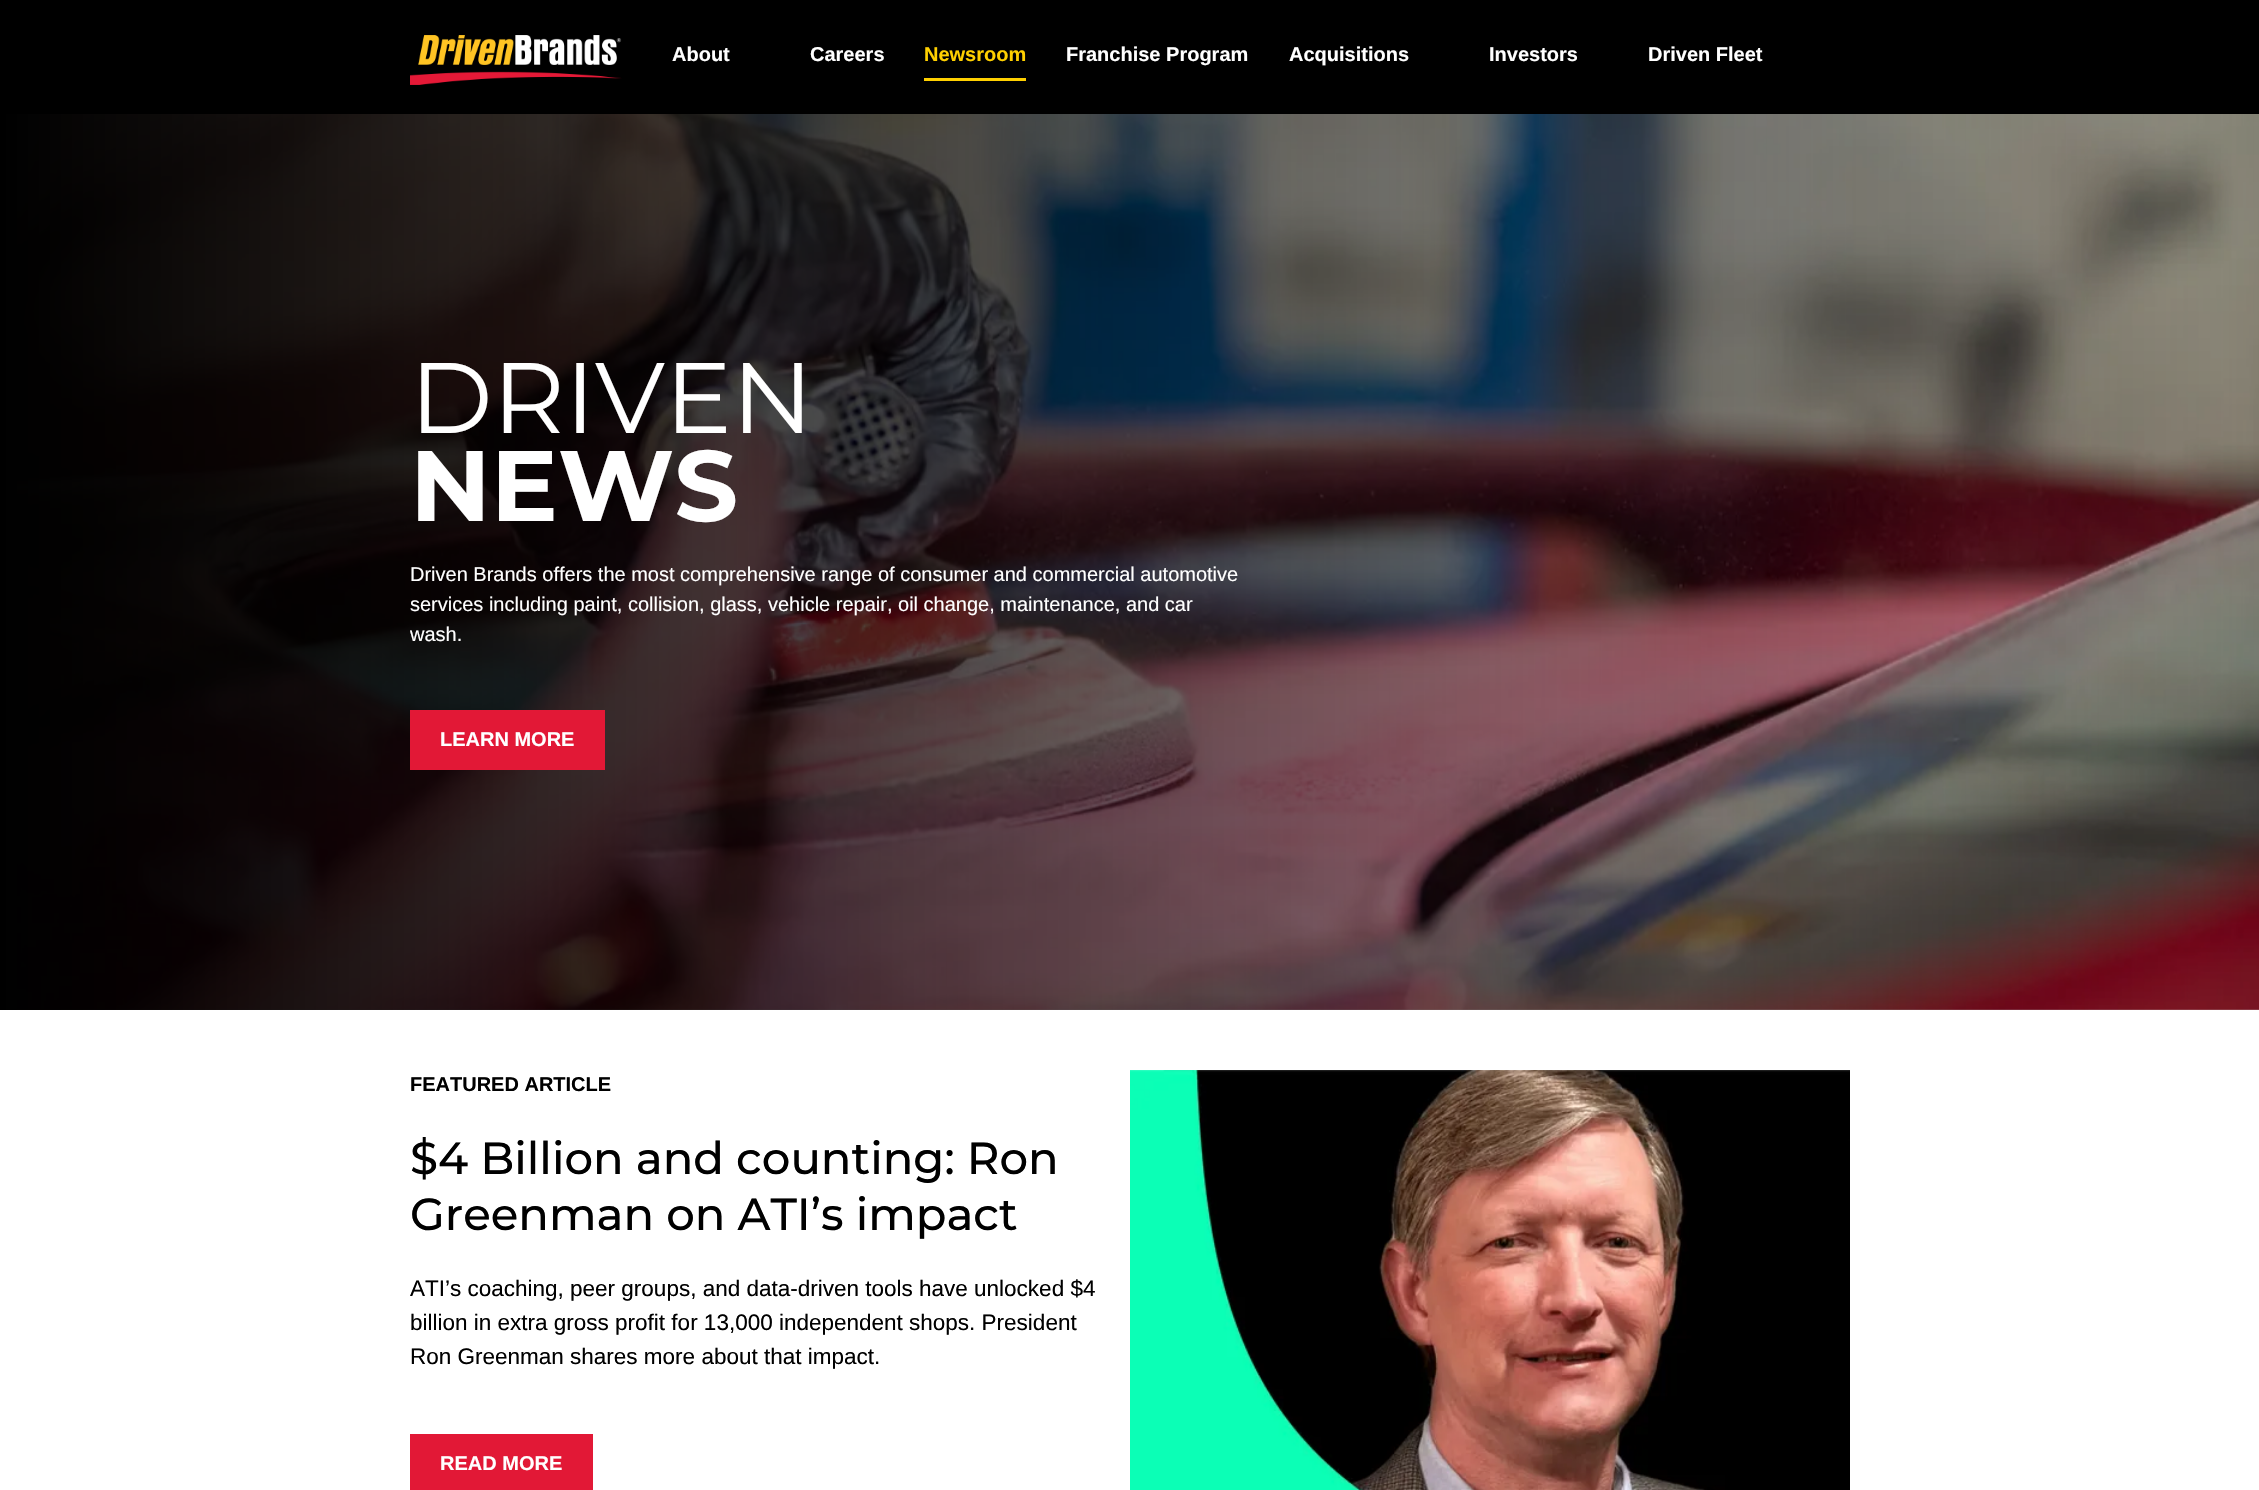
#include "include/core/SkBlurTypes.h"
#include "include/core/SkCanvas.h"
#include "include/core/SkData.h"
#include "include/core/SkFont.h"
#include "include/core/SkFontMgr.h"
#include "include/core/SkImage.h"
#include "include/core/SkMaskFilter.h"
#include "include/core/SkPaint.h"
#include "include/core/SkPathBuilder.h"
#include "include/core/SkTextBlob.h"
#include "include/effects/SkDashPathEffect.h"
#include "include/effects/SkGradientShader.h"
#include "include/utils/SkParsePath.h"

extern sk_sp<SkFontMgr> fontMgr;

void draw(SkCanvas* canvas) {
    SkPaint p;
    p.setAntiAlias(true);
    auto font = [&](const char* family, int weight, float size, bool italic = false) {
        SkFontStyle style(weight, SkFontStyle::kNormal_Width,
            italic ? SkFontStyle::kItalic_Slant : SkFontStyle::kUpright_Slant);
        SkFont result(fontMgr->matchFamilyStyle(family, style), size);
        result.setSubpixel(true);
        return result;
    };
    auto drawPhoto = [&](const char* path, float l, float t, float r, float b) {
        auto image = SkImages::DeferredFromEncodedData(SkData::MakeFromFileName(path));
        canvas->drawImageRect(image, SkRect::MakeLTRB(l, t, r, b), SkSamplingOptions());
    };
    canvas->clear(0xFFFFFFFF);
    p.setColor(0xFF000000);
    canvas->drawRect(SkRect::MakeLTRB(0, 0, 2259, 114), p);
    drawPhoto("media/1.png", 410, 35, 622, 85);
    auto font1 = font("Liberation Sans", 700, 20);
    p.setColor(0xFFFFFFFF);
    canvas->drawString("About", 672, 61, font1, p);
    canvas->drawString("Careers", 810, 61, font1, p);
    p.setColor(0xFFFFD000);
    canvas->drawString("Newsroom", 924, 61, font1, p);
    canvas->drawRect(SkRect::MakeLTRB(924, 78, 1026, 81), p);
    p.setColor(0xFFFFFFFF);
    {
        const struct { const char* s; float x, y; } items[] = {
            {"Franchise Program", 1066, 61},
            {"Acquisitions", 1289, 61},
            {"Investors", 1489, 61},
            {"Driven Fleet", 1648, 61},
        };
        for (auto [s, x, y] : items) {
            canvas->drawString(s, x, y, font1, p);
        }
    }
    drawPhoto("media/2.png", 17, 114, 2259, 1010);
    {
        const SkColor colors[] = {0xFF000000, 0x33000000};
        const float stops[] = {0, 1};
        const SkPoint ends[] = {{0, 562}, {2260, 562}};
        p.setShader(SkGradientShader::MakeLinear(ends, colors, stops, 2, SkTileMode::kClamp));
        p.setAlpha(255);
    }
    canvas->drawRect(SkRect::MakeLTRB(0, 114, 2259, 1010), p);
    auto font2 = font("Montserrat", 400, 100);
    p.setShader(nullptr);
    p.setColor(0xFFFFFFFF);
    canvas->drawString("DRIVEN", 410, 433, font2, p);
    auto font3 = font("Montserrat", 700, 100);
    canvas->drawString("NEWS", 410, 521, font3, p);
    auto font4 = font("Liberation Sans", 400, 20);
    {
        const struct { const char* s; float x, y; } items[] = {
            {"Driven Brands offers the most comprehensive range of consumer and commercial automotive", 410, 581},
            {"services including paint, collision, glass, vehicle repair, oil change, maintenance, and car", 410, 611},
            {"wash.", 410, 641},
        };
        for (auto [s, x, y] : items) {
            canvas->drawString(s, x, y, font4, p);
        }
    }
    p.setColor(0xFFE21836);
    canvas->drawRect(SkRect::MakeLTRB(410, 710, 605, 770), p);
    p.setColor(0xFFFFFFFF);
    canvas->drawString("LEARN MORE", 440, 746, font1, p);
    p.setColor(0xFF000000);
    canvas->drawString("FEATURED ARTICLE", 410, 1091, font1, p);
    auto font5 = font("Montserrat", 500, 45);
    canvas->drawString("$4 Billion and counting: Ron", 410, 1174, font5, p);
    canvas->drawString("Greenman on ATI’s impact", 410, 1230, font5, p);
    auto font6 = font("Liberation Sans", 400, 22.5f);
    {
        const struct { const char* s; float x, y; } items[] = {
            {"ATI’s coaching, peer groups, and data-driven tools have unlocked $4", 410, 1296},
            {"billion in extra gross profit for 13,000 independent shops. President", 410, 1330},
            {"Ron Greenman shares more about that impact.", 410, 1364},
        };
        for (auto [s, x, y] : items) {
            canvas->drawString(s, x, y, font6, p);
        }
    }
    p.setColor(0xFFE21836);
    canvas->drawRect(SkRect::MakeLTRB(410, 1434, 593, 1490), p);
    p.setColor(0xFFFFFFFF);
    canvas->drawString("READ MORE", 440, 1470, font1, p);
    drawPhoto("media/3.png", 1130, 1070, 1850, 1490);
}
